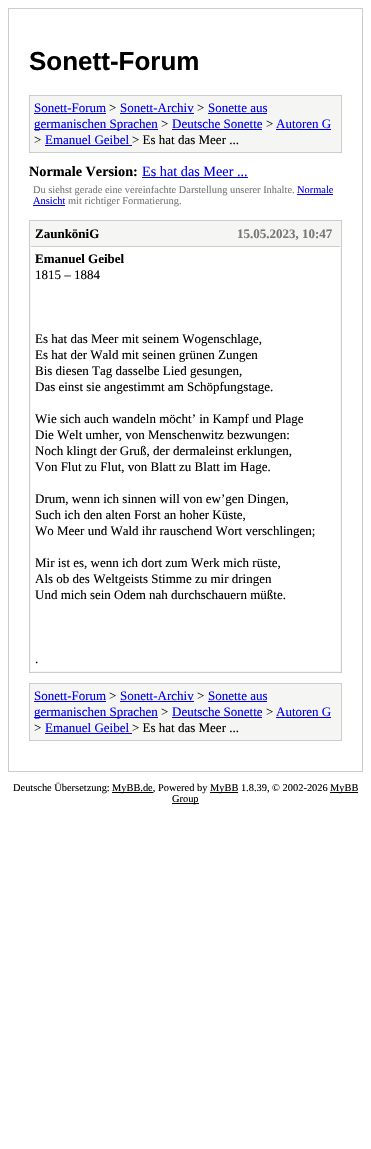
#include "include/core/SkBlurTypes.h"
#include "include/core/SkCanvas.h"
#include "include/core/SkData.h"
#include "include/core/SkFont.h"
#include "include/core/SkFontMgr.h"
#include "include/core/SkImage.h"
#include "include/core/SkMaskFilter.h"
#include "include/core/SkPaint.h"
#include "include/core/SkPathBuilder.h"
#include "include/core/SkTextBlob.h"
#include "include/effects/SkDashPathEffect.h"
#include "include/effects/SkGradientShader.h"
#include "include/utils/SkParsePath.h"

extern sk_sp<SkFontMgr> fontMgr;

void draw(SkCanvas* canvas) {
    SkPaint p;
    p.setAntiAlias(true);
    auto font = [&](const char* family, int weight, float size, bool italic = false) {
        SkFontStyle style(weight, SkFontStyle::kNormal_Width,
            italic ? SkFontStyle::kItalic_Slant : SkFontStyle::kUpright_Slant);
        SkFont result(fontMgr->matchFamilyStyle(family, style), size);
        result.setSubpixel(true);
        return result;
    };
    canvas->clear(0xFFFFFFFF);
    p.setStyle(SkPaint::kStroke_Style);
    p.setStrokeWidth(1);
    p.setColor(0xFFCCCCCC);
    canvas->drawRect(SkRect::MakeLTRB(8.5f, 8.5f, 362.5f, 771.5f), p);
    auto font1 = font("Liberation Sans", 700, 26);
    p.setStyle(SkPaint::kFill_Style);
    p.setColor(0xFF000000);
    canvas->drawString("Sonett-Forum", 29, 70, font1, p);
    p.setColor(0xFFF5F5F4);
    canvas->drawRect(SkRect::MakeLTRB(29.5f, 95.5f, 341.5f, 152.5f), p);
    p.setStyle(SkPaint::kStroke_Style);
    p.setColor(0xFFCCCCCC);
    canvas->drawRect(SkRect::MakeLTRB(29.5f, 95.5f, 341.5f, 152.5f), p);
    auto font2 = font("Liberation Serif", 400, 13);
    p.setStyle(SkPaint::kFill_Style);
    p.setColor(0xFF0000EE);
    canvas->drawString("Sonett-Forum", 34, 112, font2, p);
    canvas->drawRect(SkRect::MakeLTRB(34, 113, 106, 114), p);
    p.setColor(0xFF000000);
    canvas->drawString(">", 109, 112, font2, p);
    p.setColor(0xFF0000EE);
    canvas->drawString("Sonett-Archiv", 120, 112, font2, p);
    canvas->drawRect(SkRect::MakeLTRB(120, 113, 194, 114), p);
    p.setColor(0xFF000000);
    canvas->drawString(">", 197, 112, font2, p);
    p.setColor(0xFF0000EE);
    canvas->drawString("Sonette aus", 208, 112, font2, p);
    canvas->drawRect(SkRect::MakeLTRB(208, 113, 267, 114), p);
    canvas->drawRect(SkRect::MakeLTRB(34, 129, 158, 130), p);
    canvas->drawString("germanischen Sprachen", 34, 128, font2, p);
    p.setColor(0xFF000000);
    canvas->drawString(">", 161, 128, font2, p);
    p.setColor(0xFF0000EE);
    canvas->drawString("Deutsche Sonette", 172, 128, font2, p);
    canvas->drawRect(SkRect::MakeLTRB(172, 129, 262, 130), p);
    p.setColor(0xFF000000);
    canvas->drawString(">", 266, 128, font2, p);
    p.setColor(0xFF0000EE);
    canvas->drawString("Autoren G", 276, 128, font2, p);
    canvas->drawRect(SkRect::MakeLTRB(276, 129, 331, 130), p);
    p.setColor(0xFF000000);
    canvas->drawString(">", 34, 144, font2, p);
    p.setColor(0xFF0000EE);
    canvas->drawString("Emanuel Geibel", 45, 144, font2, p);
    canvas->drawRect(SkRect::MakeLTRB(45, 145, 132, 146), p);
    p.setColor(0xFF000000);
    canvas->drawString("> Es hat das Meer ...", 132, 144, font2, p);
    auto font3 = font("Liberation Serif", 700, 14.25f);
    canvas->drawString("Normale Version:", 29, 176, font3, p);
    auto font4 = font("Liberation Serif", 400, 14.25f);
    p.setColor(0xFF0000EE);
    canvas->drawString("Es hat das Meer ...", 142, 176, font4, p);
    canvas->drawRect(SkRect::MakeLTRB(142, 177, 248, 178), p);
    auto font5 = font("Liberation Serif", 400, 10.4f);
    p.setColor(0xFF777777);
    canvas->drawString("Du siehst gerade eine vereinfachte Darstellung unserer Inhalte.", 33, 193, font5, p);
    p.setColor(0xFF0000EE);
    canvas->drawString("Normale", 297, 193, font5, p);
    canvas->drawRect(SkRect::MakeLTRB(297, 194, 333, 195), p);
    canvas->drawString("Ansicht", 33, 204, font5, p);
    canvas->drawRect(SkRect::MakeLTRB(33, 205, 65, 206), p);
    p.setColor(0xFF777777);
    canvas->drawString("mit richtiger Formatierung.", 68, 204, font5, p);
    p.setColor(0xFFF5F5F4);
    canvas->drawRect(SkRect::MakeLTRB(29.5f, 220.5f, 341.5f, 672.5f), p);
    p.setStyle(SkPaint::kStroke_Style);
    p.setColor(0xFFCCCCCC);
    canvas->drawRect(SkRect::MakeLTRB(29.5f, 220.5f, 341.5f, 672.5f), p);
    p.setStyle(SkPaint::kFill_Style);
    canvas->drawRect(SkRect::MakeLTRB(31, 246, 340, 247), p);
    auto font6 = font("Liberation Serif", 700, 13);
    p.setColor(0xFF000000);
    canvas->drawString("ZaunköniG", 35, 238, font6, p);
    p.setColor(0xFF777777);
    canvas->drawString("15.05.2023, 10:47", 237, 238, font6, p);
    p.setColor(0xFFFFFFFF);
    canvas->drawRect(SkRect::MakeLTRB(31, 247, 340, 671), p);
    p.setColor(0xFF000000);
    canvas->drawString("Emanuel Geibel", 35, 263, font6, p);
    {
        const struct { const char* s; float x, y; } items[] = {
            {"1815 – 1884", 35, 279},
            {"Es hat das Meer mit seinem Wogenschlage,", 35, 343},
            {"Es hat der Wald mit seinen grünen Zungen", 35, 359},
            {"Bis diesen Tag dasselbe Lied gesungen,", 35, 375},
            {"Das einst sie angestimmt am Schöpfungstage.", 35, 391},
            {"Wie sich auch wandeln möcht’ in Kampf und Plage", 35, 423},
            {"Die Welt umher, von Menschenwitz bezwungen:", 35, 439},
            {"Noch klingt der Gruß, der dermaleinst erklungen,", 35, 455},
            {"Von Flut zu Flut, von Blatt zu Blatt im Hage.", 35, 471},
            {"Drum, wenn ich sinnen will von ew’gen Dingen,", 35, 503},
            {"Such ich den alten Forst an hoher Küste,", 35, 519},
            {"Wo Meer und Wald ihr rauschend Wort verschlingen;", 35, 535},
            {"Mir ist es, wenn ich dort zum Werk mich rüste,", 35, 567},
            {"Als ob des Weltgeists Stimme zu mir dringen", 35, 583},
            {"Und mich sein Odem nah durchschauern müßte.", 35, 599},
            {".", 35, 663},
        };
        for (auto [s, x, y] : items) {
            canvas->drawString(s, x, y, font2, p);
        }
    }
    p.setColor(0xFFF5F5F4);
    canvas->drawRect(SkRect::MakeLTRB(29.5f, 683.5f, 341.5f, 740.5f), p);
    p.setStyle(SkPaint::kStroke_Style);
    p.setColor(0xFFCCCCCC);
    canvas->drawRect(SkRect::MakeLTRB(29.5f, 683.5f, 341.5f, 740.5f), p);
    p.setStyle(SkPaint::kFill_Style);
    p.setColor(0xFF0000EE);
    canvas->drawString("Sonett-Forum", 34, 700, font2, p);
    canvas->drawRect(SkRect::MakeLTRB(34, 701, 106, 702), p);
    p.setColor(0xFF000000);
    canvas->drawString(">", 109, 700, font2, p);
    p.setColor(0xFF0000EE);
    canvas->drawString("Sonett-Archiv", 120, 700, font2, p);
    canvas->drawRect(SkRect::MakeLTRB(120, 701, 194, 702), p);
    p.setColor(0xFF000000);
    canvas->drawString(">", 197, 700, font2, p);
    p.setColor(0xFF0000EE);
    canvas->drawString("Sonette aus", 208, 700, font2, p);
    canvas->drawRect(SkRect::MakeLTRB(208, 701, 267, 702), p);
    canvas->drawRect(SkRect::MakeLTRB(34, 717, 158, 718), p);
    canvas->drawString("germanischen Sprachen", 34, 716, font2, p);
    p.setColor(0xFF000000);
    canvas->drawString(">", 161, 716, font2, p);
    p.setColor(0xFF0000EE);
    canvas->drawString("Deutsche Sonette", 172, 716, font2, p);
    canvas->drawRect(SkRect::MakeLTRB(172, 717, 262, 718), p);
    p.setColor(0xFF000000);
    canvas->drawString(">", 266, 716, font2, p);
    p.setColor(0xFF0000EE);
    canvas->drawString("Autoren G", 276, 716, font2, p);
    canvas->drawRect(SkRect::MakeLTRB(276, 717, 331, 718), p);
    p.setColor(0xFF000000);
    canvas->drawString(">", 34, 732, font2, p);
    p.setColor(0xFF0000EE);
    canvas->drawString("Emanuel Geibel", 45, 732, font2, p);
    canvas->drawRect(SkRect::MakeLTRB(45, 733, 132, 734), p);
    p.setColor(0xFF000000);
    canvas->drawString("> Es hat das Meer ...", 132, 732, font2, p);
    canvas->drawString("Deutsche Übersetzung:", 13, 791, font5, p);
    canvas->drawRect(SkRect::MakeLTRB(112, 792, 153, 793), p);
    canvas->drawString("MyBB.de, Powered by", 112, 791, font5, p);
    canvas->drawRect(SkRect::MakeLTRB(210, 792, 238, 793), p);
    canvas->drawString("MyBB 1.8.39, © 2002-2026", 210, 791, font5, p);
    canvas->drawRect(SkRect::MakeLTRB(330, 792, 358, 793), p);
    canvas->drawString("MyBB", 330, 791, font5, p);
    canvas->drawRect(SkRect::MakeLTRB(172, 803, 199, 804), p);
    canvas->drawString("Group", 172, 802, font5, p);
}
